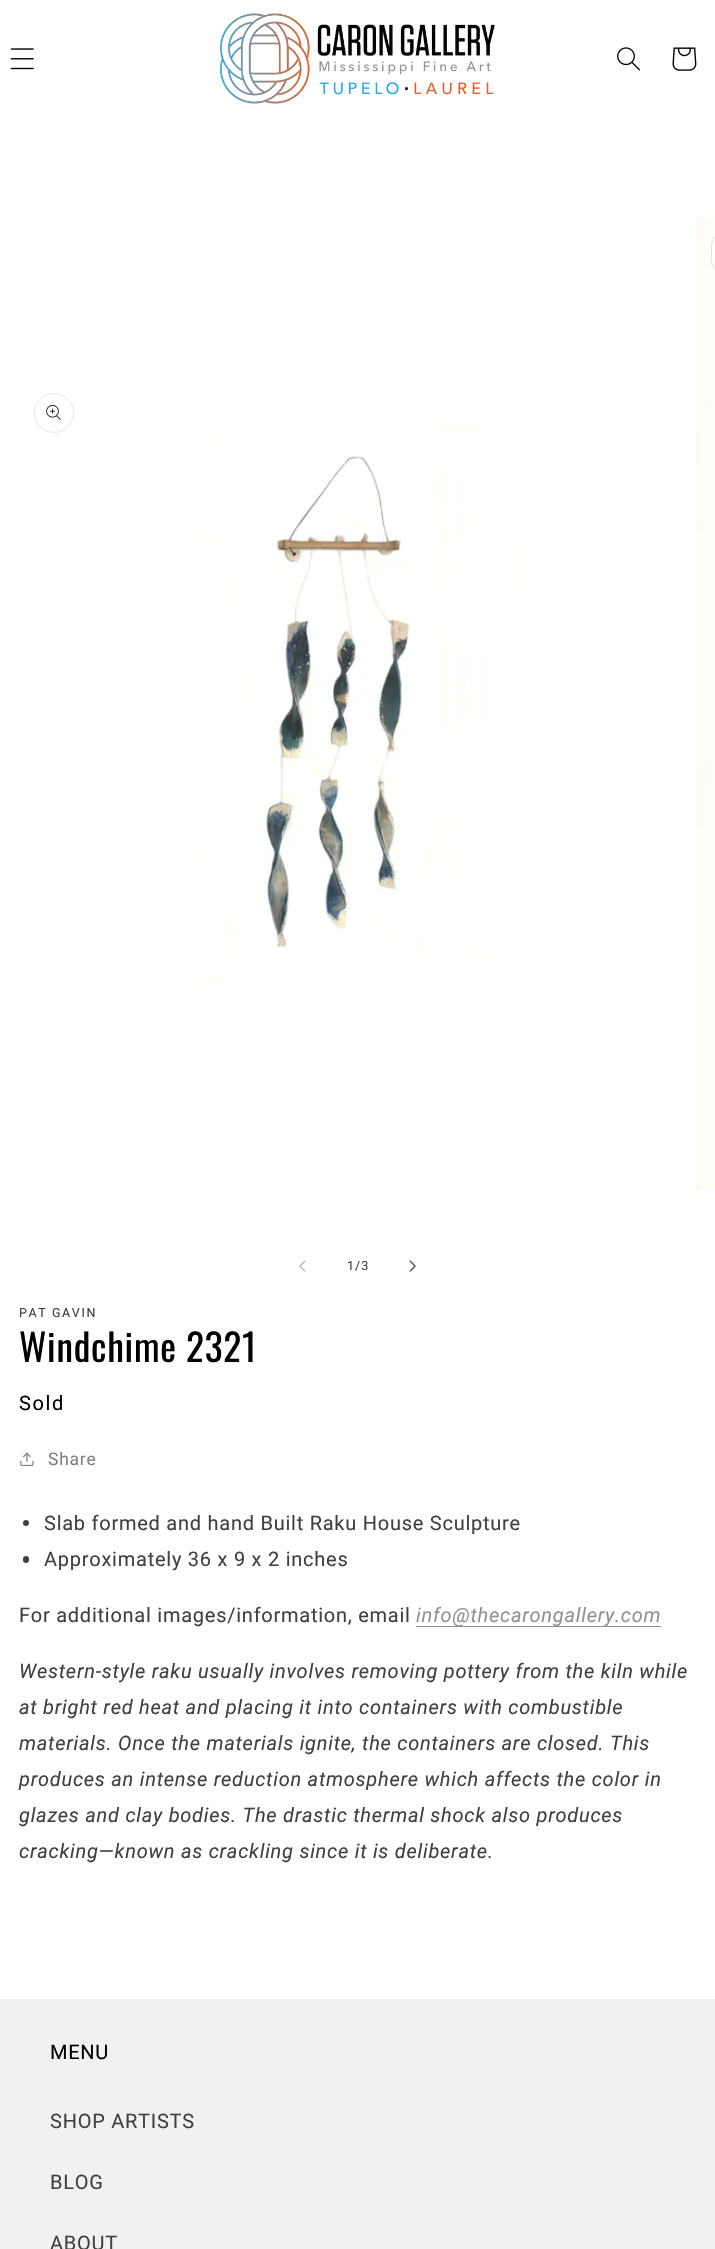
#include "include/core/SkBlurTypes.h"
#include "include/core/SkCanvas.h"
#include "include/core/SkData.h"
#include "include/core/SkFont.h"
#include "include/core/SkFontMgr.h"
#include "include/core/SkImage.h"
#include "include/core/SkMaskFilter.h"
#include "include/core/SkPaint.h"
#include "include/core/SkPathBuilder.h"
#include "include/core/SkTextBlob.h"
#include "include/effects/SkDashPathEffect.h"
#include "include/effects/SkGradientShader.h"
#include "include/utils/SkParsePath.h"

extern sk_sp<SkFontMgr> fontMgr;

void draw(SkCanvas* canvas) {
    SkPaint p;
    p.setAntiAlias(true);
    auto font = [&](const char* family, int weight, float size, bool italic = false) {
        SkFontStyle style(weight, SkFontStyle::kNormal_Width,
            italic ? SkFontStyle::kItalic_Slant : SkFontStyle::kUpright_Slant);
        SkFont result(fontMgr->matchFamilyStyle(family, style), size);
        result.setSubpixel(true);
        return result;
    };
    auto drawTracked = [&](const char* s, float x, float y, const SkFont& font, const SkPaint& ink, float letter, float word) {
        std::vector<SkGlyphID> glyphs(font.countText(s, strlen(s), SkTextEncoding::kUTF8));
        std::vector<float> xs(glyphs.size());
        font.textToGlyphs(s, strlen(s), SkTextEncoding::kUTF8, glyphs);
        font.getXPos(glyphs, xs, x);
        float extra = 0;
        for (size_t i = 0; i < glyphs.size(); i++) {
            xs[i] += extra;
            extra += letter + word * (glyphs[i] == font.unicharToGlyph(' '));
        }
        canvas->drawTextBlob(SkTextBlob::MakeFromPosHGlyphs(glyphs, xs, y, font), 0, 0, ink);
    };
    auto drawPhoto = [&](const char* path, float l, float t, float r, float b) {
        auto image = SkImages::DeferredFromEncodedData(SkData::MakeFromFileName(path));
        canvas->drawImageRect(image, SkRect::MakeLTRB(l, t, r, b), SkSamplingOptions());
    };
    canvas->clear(0xFFFFFFFF);
    drawPhoto("media/1.png", 10, 48, 34, 70);
    drawPhoto("media/2.png", 220, 13, 495, 104);
    drawPhoto("media/3.png", 617, 47, 640, 71);
    drawPhoto("media/4.png", 672, 47, 697, 71);
    p.setStyle(SkPaint::kStroke_Style);
    p.setStrokeWidth(1);
    p.setColor(0xFFE6E6E6);
    canvas->drawCircle(54, 413, 19.5f, p);
    drawPhoto("media/5.png", 46, 405, 61, 420);
    drawPhoto("media/6.png", 159, 425, 521, 982);
    drawPhoto("media/7.png", 696, 217, 715, 1190);
    p.setStyle(SkPaint::kFill_Style);
    p.setColor(0xFFFFFFFF);
    canvas->drawPath(SkPathBuilder().moveTo(731, 233).lineTo(715, 233).lineTo(715, 273).lineTo(731, 273).cubicTo(720, 273, 711, 264, 711, 253).cubicTo(711, 242, 720, 233, 731, 233).close().detach(), p);
    p.setStyle(SkPaint::kStroke_Style);
    p.setColor(0x1A000000);
    canvas->drawRoundRect(SkRect::MakeLTRB(711.5f, 233.5f, 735.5f, 272.5f), 19.5f, 19.5f, p);
    drawPhoto("media/8.png", 299, 1260, 306, 1272);
    auto font1 = font("Roboto", 400, 12.5f);
    p.setStyle(SkPaint::kFill_Style);
    p.setColor(0xFF404040);
    drawTracked("1/3", 347, 1270, font1, p, 1, 0);
    drawPhoto("media/9.png", 409, 1260, 416, 1272);
    drawTracked("PAT GAVIN", 19, 1317, font1, p, 1.6f, 0);
    auto font2 = font("Oswald", 400, 37.5f);
    p.setColor(0xFF000000);
    drawTracked("Windchime 2321", 19, 1362, font2, p, 0.75f, 0);
    auto font3 = font("Roboto", 400, 20);
    drawTracked("Sold", 19, 1410, font3, p, 1.6f, 0);
    drawPhoto("media/10.png", 20, 1452, 34, 1466);
    auto font4 = font("Roboto", 400, 17.5f);
    p.setColor(0xFF807F7F);
    drawTracked("Share", 48, 1465, font4, p, 0.75f, 0);
    p.setColor(0xFF404040);
    canvas->drawCircle(26, 1523, 3, p);
    drawTracked("Slab formed and hand Built Raku House Sculpture", 44, 1530, font3, p, 0.75f, 0);
    canvas->drawRoundRect(SkRect::MakeLTRB(23, 1556, 29, 1563), 3, 3, p);
    drawTracked("Approximately 36 x 9 x 2 inches", 44, 1566, font3, p, 0.75f, 0);
    drawTracked("For additional images/information, email", 19, 1622, font3, p, 0.75f, 0);
    p.setColor(0xFF939292);
    canvas->drawRect(SkRect::MakeLTRB(416, 1626, 661, 1627), p);
    auto font5 = font("Roboto", 400, 20, true);
    drawTracked("info@thecarongallery.com", 416, 1622, font5, p, 0.75f, 0);
    p.setColor(0xFF404040);
    {
        const struct { const char* s; float x, y; } items[] = {
            {"Western-style raku usually involves removing pottery from the kiln while", 19, 1678},
            {"at bright red heat and placing it into containers with combustible", 19, 1714},
            {"materials. Once the materials ignite, the containers are closed. This", 19, 1750},
            {"produces an intense reduction atmosphere which affects the color in", 19, 1786},
            {"glazes and clay bodies. The drastic thermal shock also produces", 19, 1822},
            {"cracking—known as crackling since it is deliberate.", 19, 1858},
        };
        for (auto [s, x, y] : items) {
            drawTracked(s, x, y, font5, p, 0.75f, 0);
        }
    }
    p.setColor(0xFFF1F1F1);
    canvas->drawRect(SkRect::MakeLTRB(0, 1999, 715, 2249), p);
    p.setColor(0xFF000000);
    drawTracked("MENU", 50, 2059, font3, p, 0.75f, 0);
    p.setColor(0xFF404040);
    {
        const struct { const char* s; float x, y; } items[] = {
            {"SHOP ARTISTS", 50, 2128},
            {"BLOG", 50, 2189},
            {"ABOUT", 50, 2250},
        };
        for (auto [s, x, y] : items) {
            drawTracked(s, x, y, font3, p, 0.75f, 0);
        }
    }
}
